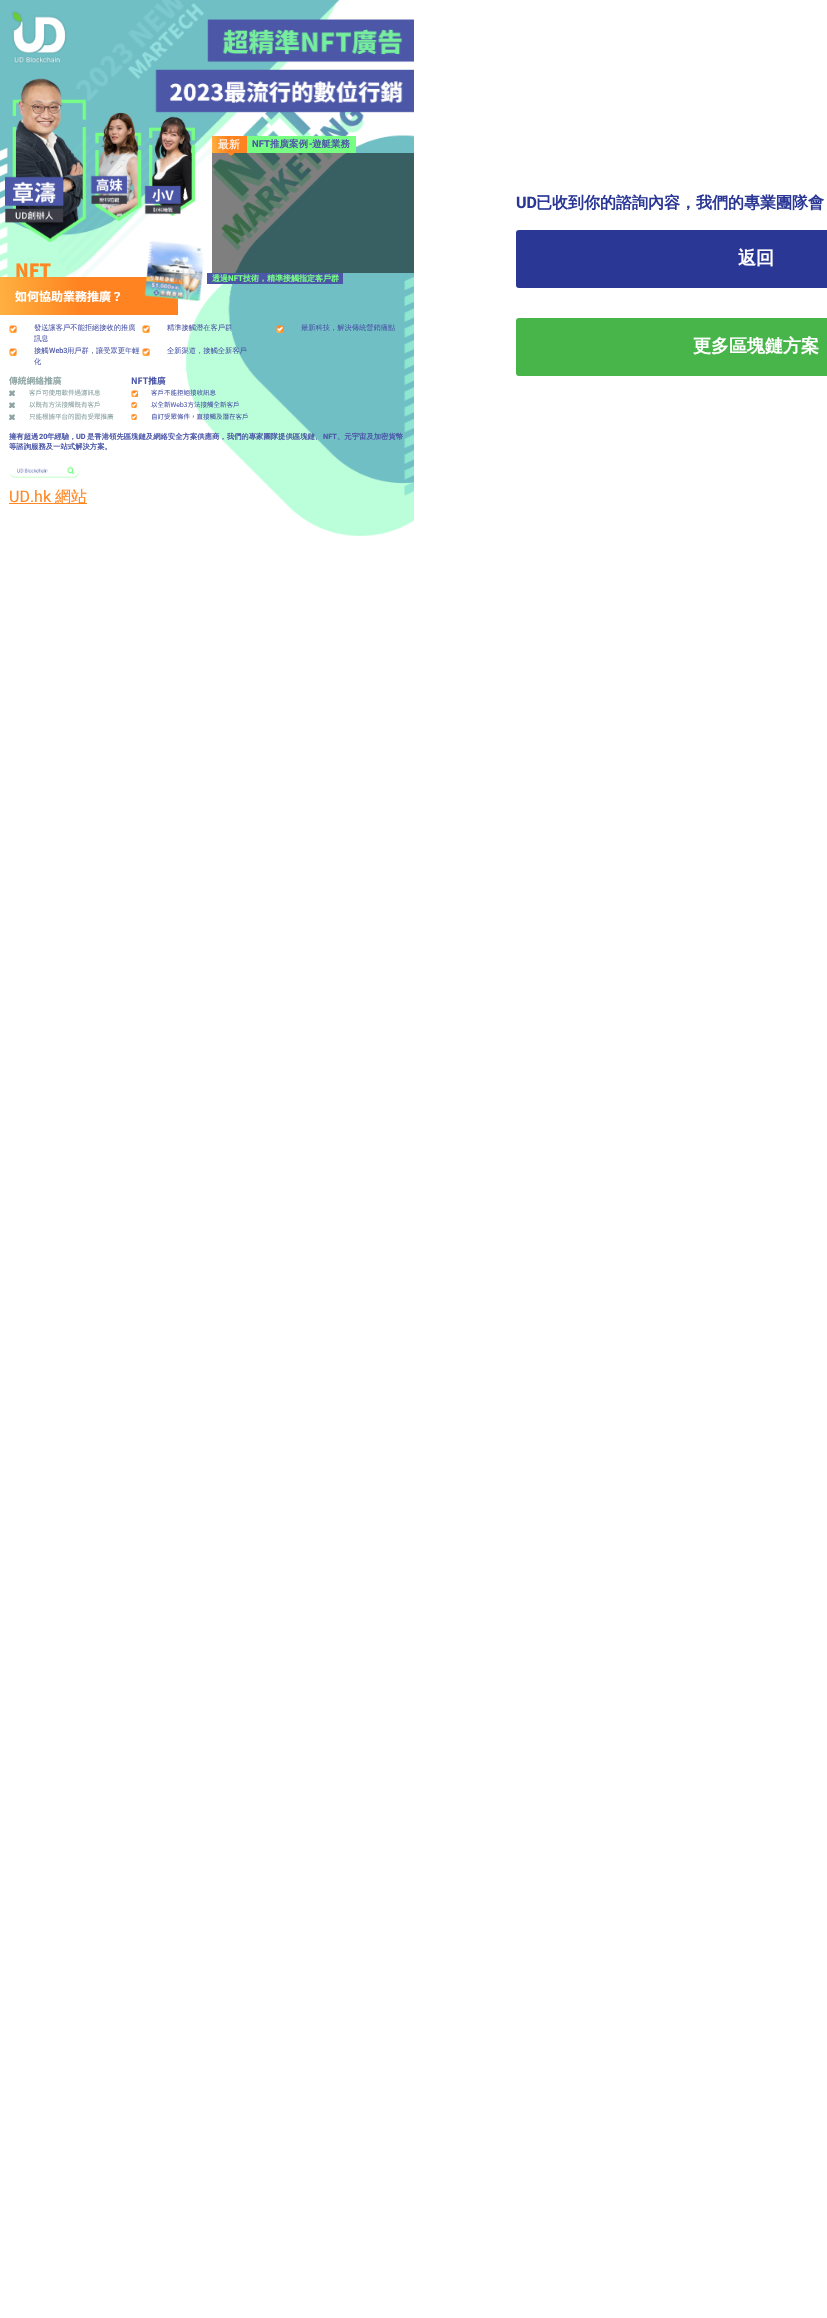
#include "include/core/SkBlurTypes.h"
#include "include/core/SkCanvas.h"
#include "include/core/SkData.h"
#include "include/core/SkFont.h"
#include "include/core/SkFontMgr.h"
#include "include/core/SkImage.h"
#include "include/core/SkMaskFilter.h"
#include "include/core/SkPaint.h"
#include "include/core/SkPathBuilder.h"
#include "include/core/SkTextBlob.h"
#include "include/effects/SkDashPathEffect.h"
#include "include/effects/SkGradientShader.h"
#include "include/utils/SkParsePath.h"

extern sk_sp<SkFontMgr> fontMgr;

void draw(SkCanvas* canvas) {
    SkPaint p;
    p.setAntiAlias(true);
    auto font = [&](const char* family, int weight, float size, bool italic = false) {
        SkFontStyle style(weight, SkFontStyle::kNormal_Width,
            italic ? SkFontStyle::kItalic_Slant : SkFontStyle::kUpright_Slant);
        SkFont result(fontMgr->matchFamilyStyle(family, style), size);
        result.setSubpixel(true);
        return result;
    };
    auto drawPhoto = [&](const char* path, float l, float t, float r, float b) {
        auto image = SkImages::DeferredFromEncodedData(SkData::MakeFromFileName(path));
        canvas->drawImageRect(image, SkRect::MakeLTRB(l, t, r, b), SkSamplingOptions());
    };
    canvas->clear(0xFFFFFFFF);
    drawPhoto("media/1.png", 0, 0, 414, 536);
    {
        const SkColor colors[] = {0xFFFF8421, 0xFFFFB946};
        const float stops[] = {0.51f, 1};
        const SkPoint ends[] = {{179, 290}, {-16, 303}};
        p.setShader(SkGradientShader::MakeLinear(ends, colors, stops, 2, SkTileMode::kClamp));
        p.setAlpha(255);
    }
    canvas->drawRect(SkRect::MakeLTRB(0, 277, 178, 315), p);
    drawPhoto("media/3.png", 144, 241, 204, 301);
    drawPhoto("media/2.png", 5, 78, 195, 242);
    p.setShader(nullptr);
    p.setColor(0x80000000);
    canvas->drawRect(SkRect::MakeLTRB(212, 153, 414, 273), p);
    {
        const SkColor colors[] = {0xFFFF8421, 0xFFFFB946};
        const float stops[] = {0.51f, 1};
        const SkPoint ends[] = {{233, 155}, {229, 151}};
        p.setShader(SkGradientShader::MakeLinear(ends, colors, stops, 2, SkTileMode::kClamp));
        p.setAlpha(255);
    }
    canvas->drawPath(SkPathBuilder().moveTo(231, 149.5f).lineTo(234.5f, 153).lineTo(231, 156).lineTo(228, 153).close().detach(), p);
    {
        const SkColor colors[] = {0xFFFF8421, 0xFFFFB946};
        const float stops[] = {0.51f, 1};
        const SkPoint ends[] = {{247, 143}, {208, 146}};
        p.setShader(SkGradientShader::MakeLinear(ends, colors, stops, 2, SkTileMode::kClamp));
        p.setAlpha(255);
    }
    canvas->drawRect(SkRect::MakeLTRB(212, 136, 247, 153), p);
    auto font1 = font("WenQuanYi Zen Hei", 500, 11);
    p.setShader(nullptr);
    p.setColor(0xFFFFFFFF);
    canvas->drawString("最新", 218, 148, font1, p);
    p.setColor(0xFF77FF84);
    canvas->drawRect(SkRect::MakeLTRB(247, 136, 356, 153), p);
    auto font2 = font("Heebo", 700, 9.5f);
    p.setColor(0xFF4C57A7);
    canvas->drawString("NFT", 252, 147, font2, p);
    auto font3 = font("WenQuanYi Zen Hei", 700, 9.5f);
    canvas->drawString("推廣案例", 270, 147, font3, p);
    canvas->drawString("-", 309, 147, font2, p);
    canvas->drawString("遊艇業務", 312, 147, font3, p);
    canvas->drawRect(SkRect::MakeLTRB(207, 273, 343, 284), p);
    auto font4 = font("WenQuanYi Zen Hei", 700, 8);
    p.setColor(0xFF77FF84);
    canvas->drawString("透過", 212, 281, font4, p);
    auto font5 = font("Heebo", 700, 8);
    canvas->drawString("NFT", 228, 281, font5, p);
    canvas->drawString("技術，精準接觸指定客戶群", 243, 281, font4, p);
    auto font6 = font("Noto Sans TC", 900, 18);
    p.setColor(0xFFFF8824);
    canvas->drawString("NFT", 15, 277, font6, p);
    auto font7 = font("Noto Sans TC", 700, 12);
    p.setColor(0xFFFFFFFF);
    canvas->drawString("如何協助業務推廣？", 15, 301, font7, p);
    drawPhoto("media/4.png", 9, 325, 17, 333);
    auto font8 = font("WenQuanYi Zen Hei", 500, 7.25f);
    p.setColor(0xFF4C57A7);
    canvas->drawString("發送讓客戶不能拒絕接收的推廣", 34, 330, font8, p);
    canvas->drawString("訊息", 34, 341, font8, p);
    drawPhoto("media/4.png", 142, 325, 150, 333);
    canvas->drawString("精準接觸潛在客戶群", 167, 330, font8, p);
    drawPhoto("media/5.png", 276, 325, 284, 333);
    canvas->drawString("最新科技，解決傳統營銷痛點", 301, 330, font8, p);
    drawPhoto("media/4.png", 9, 348, 17, 356);
    canvas->drawString("接觸", 34, 353, font8, p);
    auto font9 = font("Heebo", 500, 7.25f);
    canvas->drawString("Web3", 49, 353, font9, p);
    canvas->drawString("用戶群，讓受眾更年輕", 67, 353, font8, p);
    canvas->drawString("化", 34, 364, font8, p);
    drawPhoto("media/4.png", 142, 348, 150, 356);
    canvas->drawString("全新渠道，接觸全新客戶", 167, 353, font8, p);
    auto font10 = font("Noto Sans TC", 700, 8.75f);
    p.setColor(0xFF8EA5A4);
    canvas->drawString("傳統網絡推廣", 9, 384, font10, p);
    drawPhoto("media/6.png", 9, 390, 15, 397);
    auto font11 = font("Noto Sans TC", 400, 6.5f);
    canvas->drawString("客戶可使用軟件過濾訊息", 29, 395, font11, p);
    drawPhoto("media/7.png", 9, 402, 15, 408);
    canvas->drawString("以既有方法接觸既有客戶", 29, 407, font11, p);
    drawPhoto("media/7.png", 9, 414, 15, 420);
    canvas->drawString("只能根據平台的固有受眾推廣", 29, 419, font11, p);
    p.setColor(0xFF4C57A7);
    canvas->drawString("NFT推廣", 131, 384, font10, p);
    drawPhoto("media/8.png", 131, 390, 138, 397);
    canvas->drawString("客戶不能拒絕接收訊息", 151, 395, font11, p);
    drawPhoto("media/9.png", 131, 402, 137, 408);
    canvas->drawString("以全新Web3方法接觸全新客戶", 151, 407, font11, p);
    drawPhoto("media/9.png", 131, 414, 137, 420);
    canvas->drawString("自訂受眾條件，直接觸及潛在客戶", 151, 419, font11, p);
    auto font12 = font("WenQuanYi Zen Hei", 700, 7.35f);
    canvas->drawString("擁有超過", 9, 439, font12, p);
    auto font13 = font("Heebo", 700, 7.35f);
    canvas->drawString("20", 39, 439, font13, p);
    canvas->drawString("年經驗，", 47, 439, font12, p);
    canvas->drawString("UD", 76, 439, font13, p);
    canvas->drawString("是香港領先區塊鏈及網絡安全方案供應商，我們的專家團隊提供區塊鏈、", 87, 439, font12, p);
    canvas->drawString("NFT", 323, 439, font13, p);
    canvas->drawString("、元宇宙及加密貨幣", 337, 439, font12, p);
    canvas->drawString("等諮詢服務及一站式解決方案。", 9, 449, font12, p);
    drawPhoto("media/10.png", 9, 466, 80, 478);
    auto font14 = font("Heebo", 400, 16);
    p.setColor(0xFFFF8824);
    canvas->drawString("UD.hk", 9, 502, font14, p);
    canvas->drawRect(SkRect::MakeLTRB(9, 503, 87, 504), p);
    auto font15 = font("WenQuanYi Zen Hei", 500, 16);
    canvas->drawString("網站", 55, 502, font15, p);
    auto font16 = font("Heebo", 700, 16);
    p.setColor(0xFF2A3795);
    canvas->drawString("UD", 516, 208, font16, p);
    auto font17 = font("WenQuanYi Zen Hei", 700, 16);
    canvas->drawString("已收到你的諮詢內容，我們的專業團隊會", 536, 208, font17, p);
    canvas->drawRoundRect(SkRect::MakeLTRB(516, 230, 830, 288), 3, 3, p);
    auto font18 = font("WenQuanYi Zen Hei", 700, 18);
    p.setColor(0xFFFFFFFF);
    canvas->drawString("返回", 738, 264, font18, p);
    p.setColor(0xFF47B549);
    canvas->drawRoundRect(SkRect::MakeLTRB(516, 318, 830, 376), 3, 3, p);
    p.setColor(0xFFFFFFFF);
    canvas->drawString("更多區塊鏈方案", 693, 352, font18, p);
}
